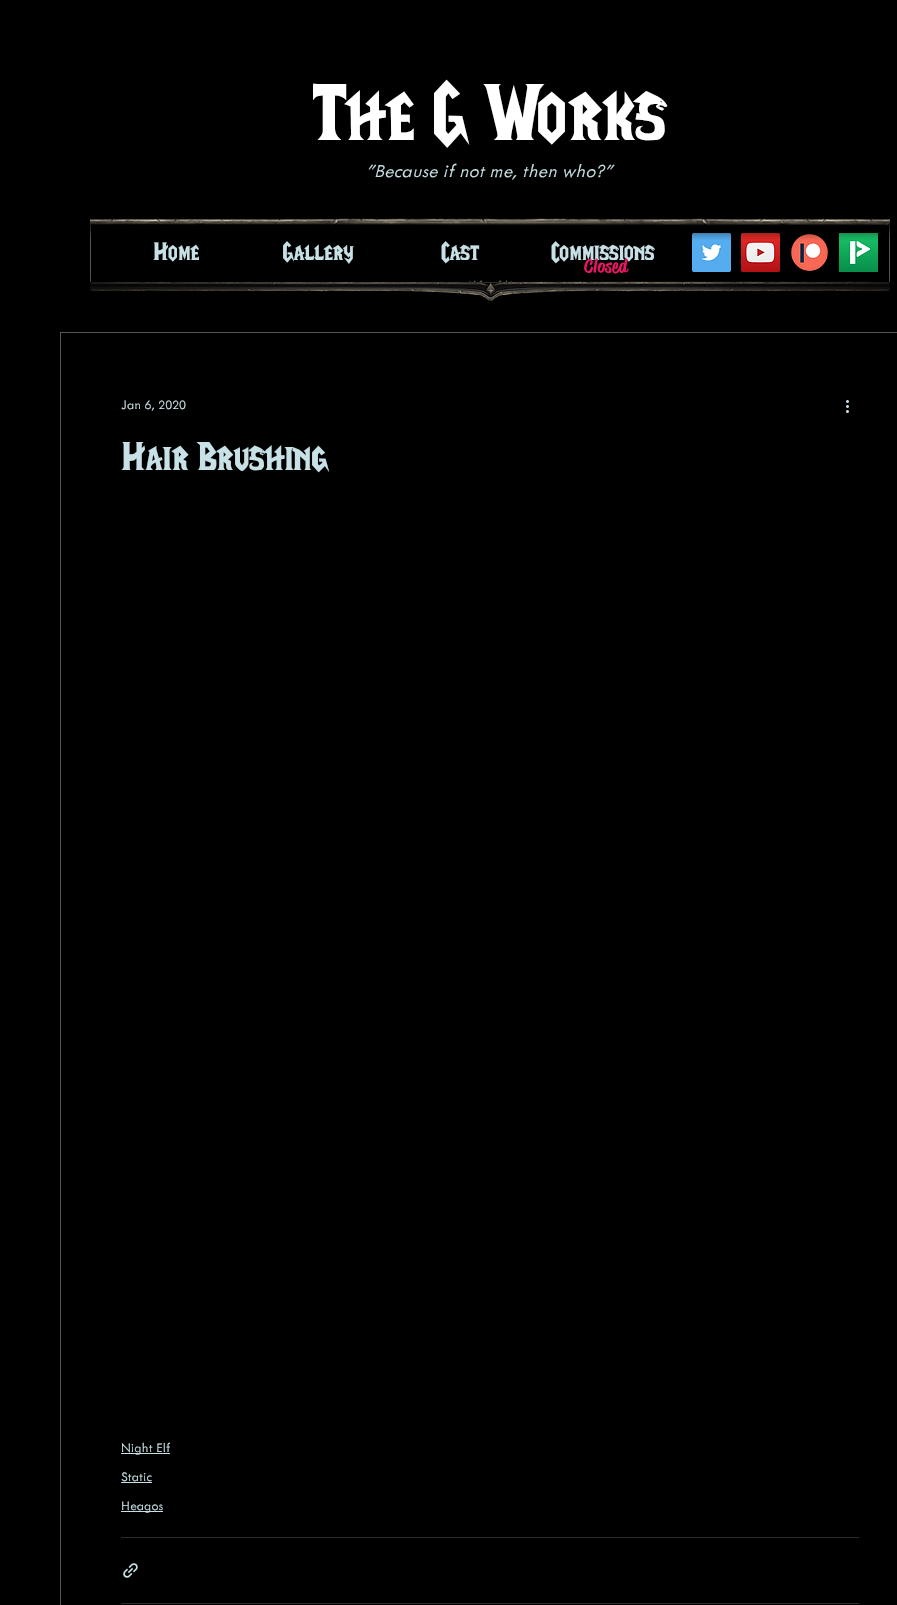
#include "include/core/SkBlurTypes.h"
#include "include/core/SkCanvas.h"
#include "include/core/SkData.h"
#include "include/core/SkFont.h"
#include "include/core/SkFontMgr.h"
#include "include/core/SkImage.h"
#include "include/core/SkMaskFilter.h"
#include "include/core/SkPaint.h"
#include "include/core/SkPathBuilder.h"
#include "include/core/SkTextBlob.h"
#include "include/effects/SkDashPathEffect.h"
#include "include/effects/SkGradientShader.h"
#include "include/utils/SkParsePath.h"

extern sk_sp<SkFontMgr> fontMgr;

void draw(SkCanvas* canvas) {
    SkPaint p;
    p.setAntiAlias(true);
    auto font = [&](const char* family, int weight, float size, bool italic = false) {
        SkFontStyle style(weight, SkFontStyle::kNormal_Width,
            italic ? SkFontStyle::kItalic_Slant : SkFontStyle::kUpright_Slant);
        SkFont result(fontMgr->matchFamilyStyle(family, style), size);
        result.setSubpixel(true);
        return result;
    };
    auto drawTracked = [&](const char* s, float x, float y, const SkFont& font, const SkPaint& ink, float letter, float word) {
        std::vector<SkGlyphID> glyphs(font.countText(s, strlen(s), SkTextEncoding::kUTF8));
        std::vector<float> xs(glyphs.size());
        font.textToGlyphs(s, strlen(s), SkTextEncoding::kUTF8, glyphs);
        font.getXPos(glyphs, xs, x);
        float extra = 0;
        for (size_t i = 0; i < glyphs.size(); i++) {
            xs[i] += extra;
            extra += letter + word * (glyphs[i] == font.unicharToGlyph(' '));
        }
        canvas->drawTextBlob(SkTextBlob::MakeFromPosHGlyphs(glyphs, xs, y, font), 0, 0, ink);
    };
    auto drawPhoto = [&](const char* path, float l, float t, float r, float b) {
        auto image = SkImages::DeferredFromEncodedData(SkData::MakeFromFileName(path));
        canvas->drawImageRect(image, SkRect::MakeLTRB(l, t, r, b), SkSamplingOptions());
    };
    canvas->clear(0xFF000000);
    auto font1 = font("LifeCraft", 400, 80);
    p.setColor(0xFFFFFFFF);
    canvas->drawString("The G Works", 313, 140, font1, p);
    auto font2 = font("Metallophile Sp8", 300, 20, true);
    p.setColor(0xFFC7E1E6);
    canvas->drawString("\"Because if not me, then who?\"", 366, 177, font2, p);
    p.setStyle(SkPaint::kStroke_Style);
    p.setStrokeWidth(1);
    p.setColor(0xFF555555);
    canvas->drawRect(SkRect::MakeLTRB(90.5f, 221.5f, 889.5f, 282.5f), p);
    drawPhoto("media/2.png", 692, 233, 731, 272);
    drawPhoto("media/3.png", 741, 233, 780, 272);
    drawPhoto("media/4.png", 791, 234, 828, 271);
    drawPhoto("media/5.png", 839, 233, 878, 272);
    drawPhoto("media/1.png", 90, 218, 890, 240);
    auto font3 = font("LifeCraft", 400, 25);
    p.setStyle(SkPaint::kFill_Style);
    p.setColor(0xFFC7E1E6);
    {
        const struct { const char* s; float x, y; } items[] = {
            {"Home", 153, 260},
            {"Gallery", 282, 260},
            {"Cast", 441, 260},
            {"Commissions", 551, 260},
        };
        for (auto [s, x, y] : items) {
            canvas->drawString(s, x, y, font3, p);
        }
    }
    auto font4 = font("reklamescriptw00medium", 500, 18);
    p.setColor(0xFFED1566);
    drawTracked("Closed", 584, 272, font4, p, 0.5f, 0);
    drawPhoto("media/6.png", 90, 278, 890, 301);
    p.setStyle(SkPaint::kStroke_Style);
    p.setColor(0xFF555555);
    canvas->drawRect(SkRect::MakeLTRB(60.5f, 332.5f, 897.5f, 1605.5f), p);
    auto font5 = font("Metallophile Sp8", 300, 14);
    p.setStyle(SkPaint::kFill_Style);
    p.setColor(0xFFC7E1E6);
    canvas->drawString("Jan 6, 2020", 121, 409, font5, p);
    drawPhoto("media/7.png", 846, 400, 849, 413);
    auto font6 = font("LifeCraft", 400, 40);
    canvas->drawString("Hair Brushing", 121, 470, font6, p);
    canvas->drawRect(SkRect::MakeLTRB(121, 1453, 170, 1454), p);
    canvas->drawString("Night Elf", 121, 1452, font5, p);
    canvas->drawString("Static", 121, 1481, font5, p);
    canvas->drawRect(SkRect::MakeLTRB(121, 1482, 152, 1483), p);
    canvas->drawRect(SkRect::MakeLTRB(121, 1511, 163, 1512), p);
    canvas->drawString("Heagos", 121, 1510, font5, p);
    p.setColor(0xFF282D2E);
    canvas->drawRect(SkRect::MakeLTRB(121, 1537, 859, 1538), p);
    drawPhoto("media/8.png", 123, 1563, 138, 1578);
    canvas->drawRect(SkRect::MakeLTRB(121, 1603, 859, 1604), p);
}
